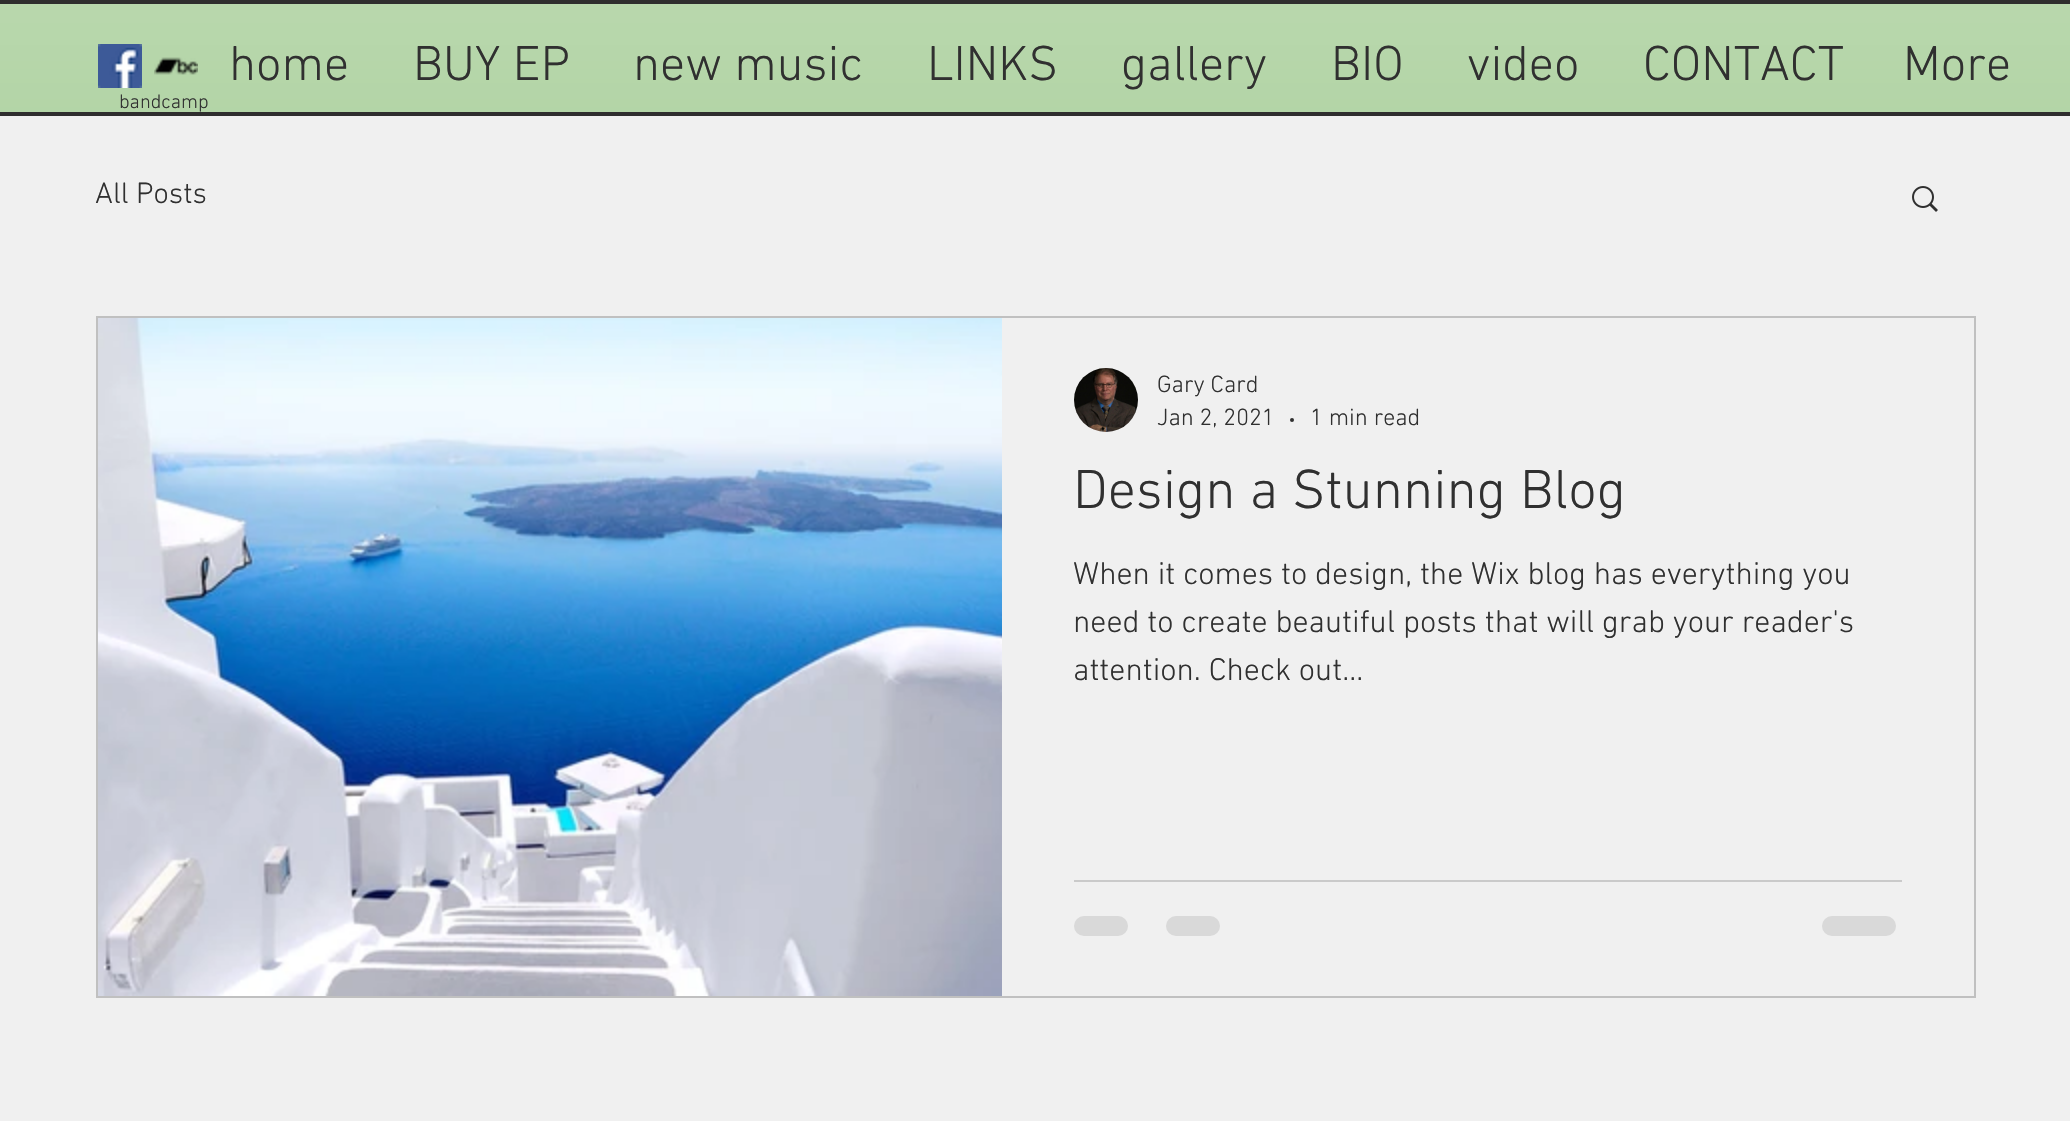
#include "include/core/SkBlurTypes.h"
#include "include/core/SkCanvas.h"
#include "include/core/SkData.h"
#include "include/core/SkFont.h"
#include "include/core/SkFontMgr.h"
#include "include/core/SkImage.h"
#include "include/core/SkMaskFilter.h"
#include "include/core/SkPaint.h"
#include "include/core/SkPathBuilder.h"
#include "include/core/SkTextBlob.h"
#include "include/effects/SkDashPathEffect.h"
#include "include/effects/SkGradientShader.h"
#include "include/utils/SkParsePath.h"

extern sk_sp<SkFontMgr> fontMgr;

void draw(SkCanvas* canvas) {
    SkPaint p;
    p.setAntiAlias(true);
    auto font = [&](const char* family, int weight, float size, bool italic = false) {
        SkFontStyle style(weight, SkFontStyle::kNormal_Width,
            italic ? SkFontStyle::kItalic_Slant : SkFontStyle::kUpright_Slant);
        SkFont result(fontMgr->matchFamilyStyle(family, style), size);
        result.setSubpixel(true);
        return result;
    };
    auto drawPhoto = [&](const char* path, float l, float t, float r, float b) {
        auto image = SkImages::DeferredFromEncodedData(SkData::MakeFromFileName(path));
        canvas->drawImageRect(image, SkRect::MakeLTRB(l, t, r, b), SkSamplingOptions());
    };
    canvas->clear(0xFFF0F0F0);
    p.setColor(0xFFA0CA90);
    canvas->drawRect(SkRect::MakeLTRB(0, 4, 2070, 112), p);
    drawPhoto("media/1.png", 0, 4, 2070, 112);
    p.setColor(0xFF2F2E2E);
    canvas->drawRect(SkRect::MakeLTRB(0, 0, 2070, 4), p);
    canvas->drawRect(SkRect::MakeLTRB(0, 112, 2070, 116), p);
    drawPhoto("media/2.png", 98, 44, 142, 88);
    drawPhoto("media/3.png", 154, 57, 198, 75);
    auto font1 = font("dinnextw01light", 300, 50);
    p.setColor(0xFF303030);
    {
        const struct { const char* s; float x, y; } items[] = {
            {"home", 229, 80},
            {"BUY EP", 413, 80},
            {"new music", 633, 80},
            {"LINKS", 927, 80},
            {"gallery", 1121, 80},
            {"BIO", 1331, 80},
            {"video", 1467, 80},
            {"CONTACT", 1643, 80},
            {"More", 1903, 80},
        };
        for (auto [s, x, y] : items) {
            canvas->drawString(s, x, y, font1, p);
        }
    }
    auto font2 = font("dinnextw01light", 300, 20);
    canvas->drawString("bandcamp", 119, 108, font2, p);
    auto font3 = font("dinnextw01light", 300, 30);
    canvas->drawString("All Posts", 95, 203, font3, p);
    drawPhoto("media/4.png", 1912, 186, 1938, 212);
    p.setStyle(SkPaint::kStroke_Style);
    p.setStrokeWidth(2);
    p.setColor(0xFFC0C0C0);
    canvas->drawRect(SkRect::MakeLTRB(97, 317, 1975, 997), p);
    drawPhoto("media/5.png", 98, 318, 1002, 996);
    drawPhoto("media/6.png", 1074, 368, 1138, 432);
    auto font4 = font("dinnextw01light", 300, 24);
    p.setStyle(SkPaint::kFill_Style);
    p.setColor(0xFF303030);
    canvas->drawString("Gary Card", 1157, 392, font4, p);
    canvas->drawString("Jan 2, 2021", 1157, 425, font4, p);
    canvas->drawCircle(1292, 420, 2, p);
    canvas->drawString("1 min read", 1310, 425, font4, p);
    auto font5 = font("dinnextw01light", 300, 56);
    canvas->drawString("Design a Stunning Blog", 1073, 508, font5, p);
    auto font6 = font("dinnextw01light", 300, 32);
    {
        const struct { const char* s; float x, y; } items[] = {
            {"When it comes to design, the Wix blog has everything you", 1073, 584},
            {"need to create beautiful posts that will grab your reader's", 1073, 632},
            {"attention. Check out...", 1073, 680},
        };
        for (auto [s, x, y] : items) {
            canvas->drawString(s, x, y, font6, p);
        }
    }
    p.setColor(0xFFCACACA);
    canvas->drawRect(SkRect::MakeLTRB(1074, 880, 1902, 882), p);
    p.setColor(0xFFD9D9D9);
    canvas->drawRoundRect(SkRect::MakeLTRB(1074, 916, 1128, 936), 10, 10, p);
    canvas->drawRoundRect(SkRect::MakeLTRB(1166, 916, 1220, 936), 10, 10, p);
    canvas->drawRoundRect(SkRect::MakeLTRB(1822, 916, 1896, 936), 10, 10, p);
}
